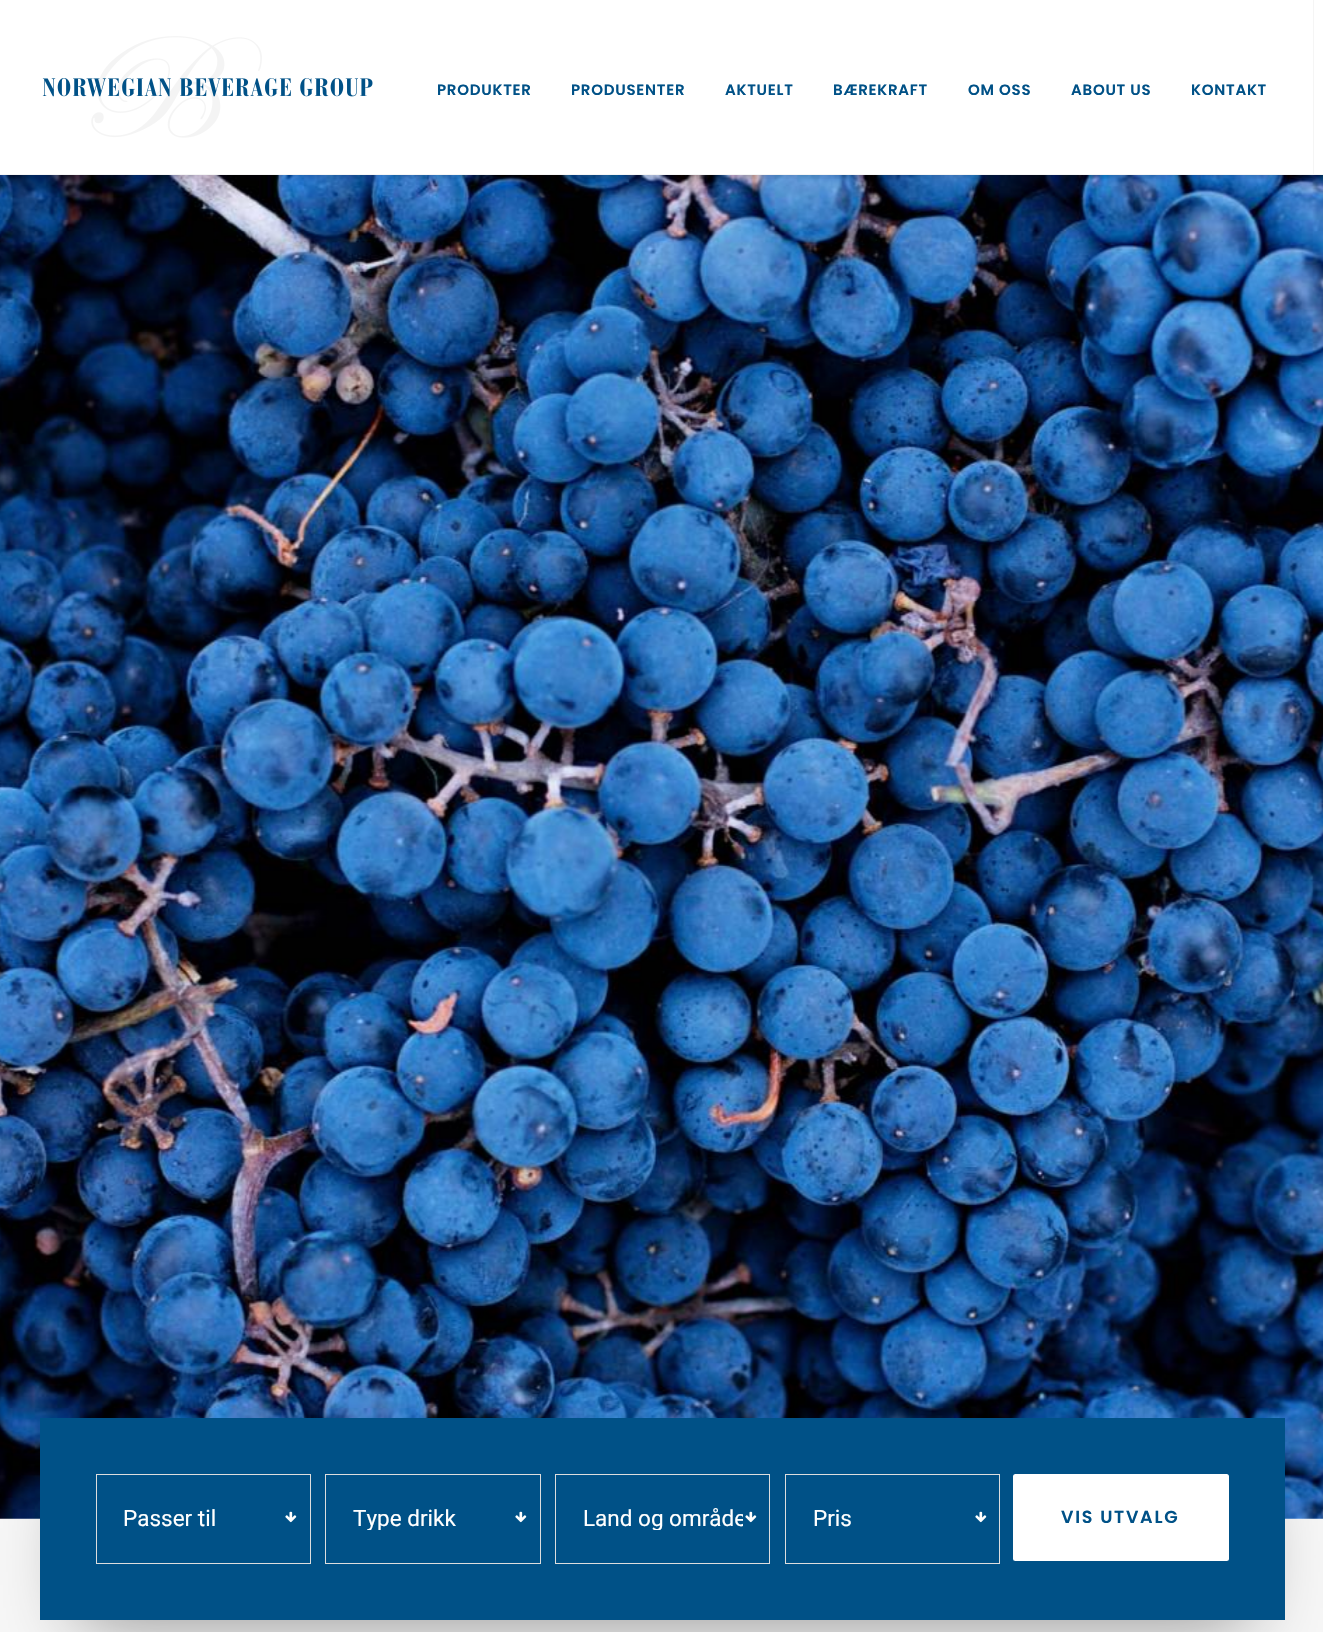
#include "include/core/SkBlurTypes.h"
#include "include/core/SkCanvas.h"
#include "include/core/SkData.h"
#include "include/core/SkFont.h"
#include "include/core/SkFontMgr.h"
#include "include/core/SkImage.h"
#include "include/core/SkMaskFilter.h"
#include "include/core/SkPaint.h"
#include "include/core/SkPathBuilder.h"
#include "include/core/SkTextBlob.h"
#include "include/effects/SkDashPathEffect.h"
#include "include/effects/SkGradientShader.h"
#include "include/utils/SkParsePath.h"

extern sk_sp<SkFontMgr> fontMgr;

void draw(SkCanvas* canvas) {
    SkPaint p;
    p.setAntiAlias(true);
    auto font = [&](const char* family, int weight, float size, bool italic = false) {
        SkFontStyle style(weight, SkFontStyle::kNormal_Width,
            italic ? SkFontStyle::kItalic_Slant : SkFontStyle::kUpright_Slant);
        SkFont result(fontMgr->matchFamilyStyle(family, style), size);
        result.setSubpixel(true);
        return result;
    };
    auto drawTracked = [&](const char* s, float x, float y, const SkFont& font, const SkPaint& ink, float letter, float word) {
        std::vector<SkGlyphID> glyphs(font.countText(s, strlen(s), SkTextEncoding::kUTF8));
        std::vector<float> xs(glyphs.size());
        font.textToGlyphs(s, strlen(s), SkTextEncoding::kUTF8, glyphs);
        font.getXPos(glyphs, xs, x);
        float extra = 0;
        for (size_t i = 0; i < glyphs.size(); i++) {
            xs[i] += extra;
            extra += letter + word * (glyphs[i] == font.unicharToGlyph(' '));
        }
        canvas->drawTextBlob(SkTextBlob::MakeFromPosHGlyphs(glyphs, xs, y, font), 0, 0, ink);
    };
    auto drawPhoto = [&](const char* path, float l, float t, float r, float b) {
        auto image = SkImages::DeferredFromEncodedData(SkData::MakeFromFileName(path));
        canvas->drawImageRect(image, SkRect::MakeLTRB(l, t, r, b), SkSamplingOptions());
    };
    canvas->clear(0xFFFFFFFF);
    drawPhoto("media/2.png", 0, 175, 1323, 1519);
    canvas->save();
    canvas->clipRect(SkRect::MakeLTRB(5, 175, 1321, 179));
    p.setColor(0x99000000);
    p.setMaskFilter(SkMaskFilter::MakeBlur(kNormal_SkBlurStyle, 6));
    canvas->drawRect(SkRect::MakeLTRB(8, 18, 1318, 168), p);
    p.setMaskFilter(nullptr);
    canvas->restore();
    p.setColor(0xFFF5F5F5);
    canvas->drawRect(SkRect::MakeLTRB(0, 174, 1323, 175), p);
    drawPhoto("media/1.png", 42, 36, 373, 138);
    auto font1 = font("Poppins", 600, 15);
    p.setColor(0xFF005187);
    {
        const struct { const char* s; float x, y; } items[] = {
            {"PRODUKTER", 437, 95},
            {"PRODUSENTER", 571, 95},
            {"AKTUELT", 725, 95},
            {"BÆREKRAFT", 833, 95},
            {"OM OSS", 968, 95},
            {"ABOUT US", 1071, 95},
            {"KONTAKT", 1191, 95},
        };
        for (auto [s, x, y] : items) {
            drawTracked(s, x, y, font1, p, 0.75f, 0);
        }
    }
    p.setColor(0xFFF5F5F5);
    canvas->drawRect(SkRect::MakeLTRB(1313, 0, 1314, 174), p);
    p.setColor(0xFFF7F7F7);
    canvas->drawRect(SkRect::MakeLTRB(0, 1519, 1323, 1632), p);
    p.setColor(0x73000000);
    p.setMaskFilter(SkMaskFilter::MakeBlur(kNormal_SkBlurStyle, 37.5f));
    canvas->drawRect(SkRect::MakeLTRB(78, 1493, 1248, 1620), p);
    p.setMaskFilter(nullptr);
    p.setColor(0xFF005187);
    canvas->drawRect(SkRect::MakeLTRB(40, 1418, 1285, 1620), p);
    p.setStyle(SkPaint::kStroke_Style);
    p.setStrokeWidth(1);
    p.setColor(0xFFDDDDDD);
    canvas->drawRect(SkRect::MakeLTRB(96.5f, 1474.5f, 310.5f, 1563.5f), p);
    auto font2 = font("Roboto", 400, 22.5f);
    p.setStyle(SkPaint::kFill_Style);
    p.setColor(0xFFFFFFFF);
    canvas->drawString("Passer til", 123, 1526, font2, p);
    drawPhoto("media/3.png", 285, 1511, 297, 1523);
    p.setStyle(SkPaint::kStroke_Style);
    p.setColor(0xFFDDDDDD);
    canvas->drawRect(SkRect::MakeLTRB(325.5f, 1474.5f, 540.5f, 1563.5f), p);
    canvas->save();
    canvas->clipRect(SkRect::MakeLTRB(353, 1508, 514, 1530));
    p.setStyle(SkPaint::kFill_Style);
    p.setColor(0xFFFFFFFF);
    canvas->drawString("Type drikk", 353, 1526, font2, p);
    canvas->restore();
    drawPhoto("media/3.png", 515, 1511, 527, 1523);
    p.setStyle(SkPaint::kStroke_Style);
    p.setColor(0xFFDDDDDD);
    canvas->drawRect(SkRect::MakeLTRB(555.5f, 1474.5f, 769.5f, 1563.5f), p);
    canvas->save();
    canvas->clipRect(SkRect::MakeLTRB(583, 1508, 743, 1530));
    p.setStyle(SkPaint::kFill_Style);
    p.setColor(0xFFFFFFFF);
    canvas->drawString("Land og område", 583, 1526, font2, p);
    canvas->restore();
    drawPhoto("media/3.png", 745, 1511, 757, 1523);
    p.setStyle(SkPaint::kStroke_Style);
    p.setColor(0xFFDDDDDD);
    canvas->drawRect(SkRect::MakeLTRB(785.5f, 1474.5f, 999.5f, 1563.5f), p);
    p.setStyle(SkPaint::kFill_Style);
    p.setColor(0xFFFFFFFF);
    canvas->drawString("Pris", 813, 1526, font2, p);
    drawPhoto("media/3.png", 975, 1511, 987, 1523);
    canvas->drawRoundRect(SkRect::MakeLTRB(1013, 1474, 1229, 1561), 2.5f, 2.5f, p);
    auto font3 = font("Poppins", 600, 17.5f);
    p.setColor(0xFF005187);
    drawTracked("VIS UTVALG", 1061, 1523, font3, p, 1.75f, 0);
}
